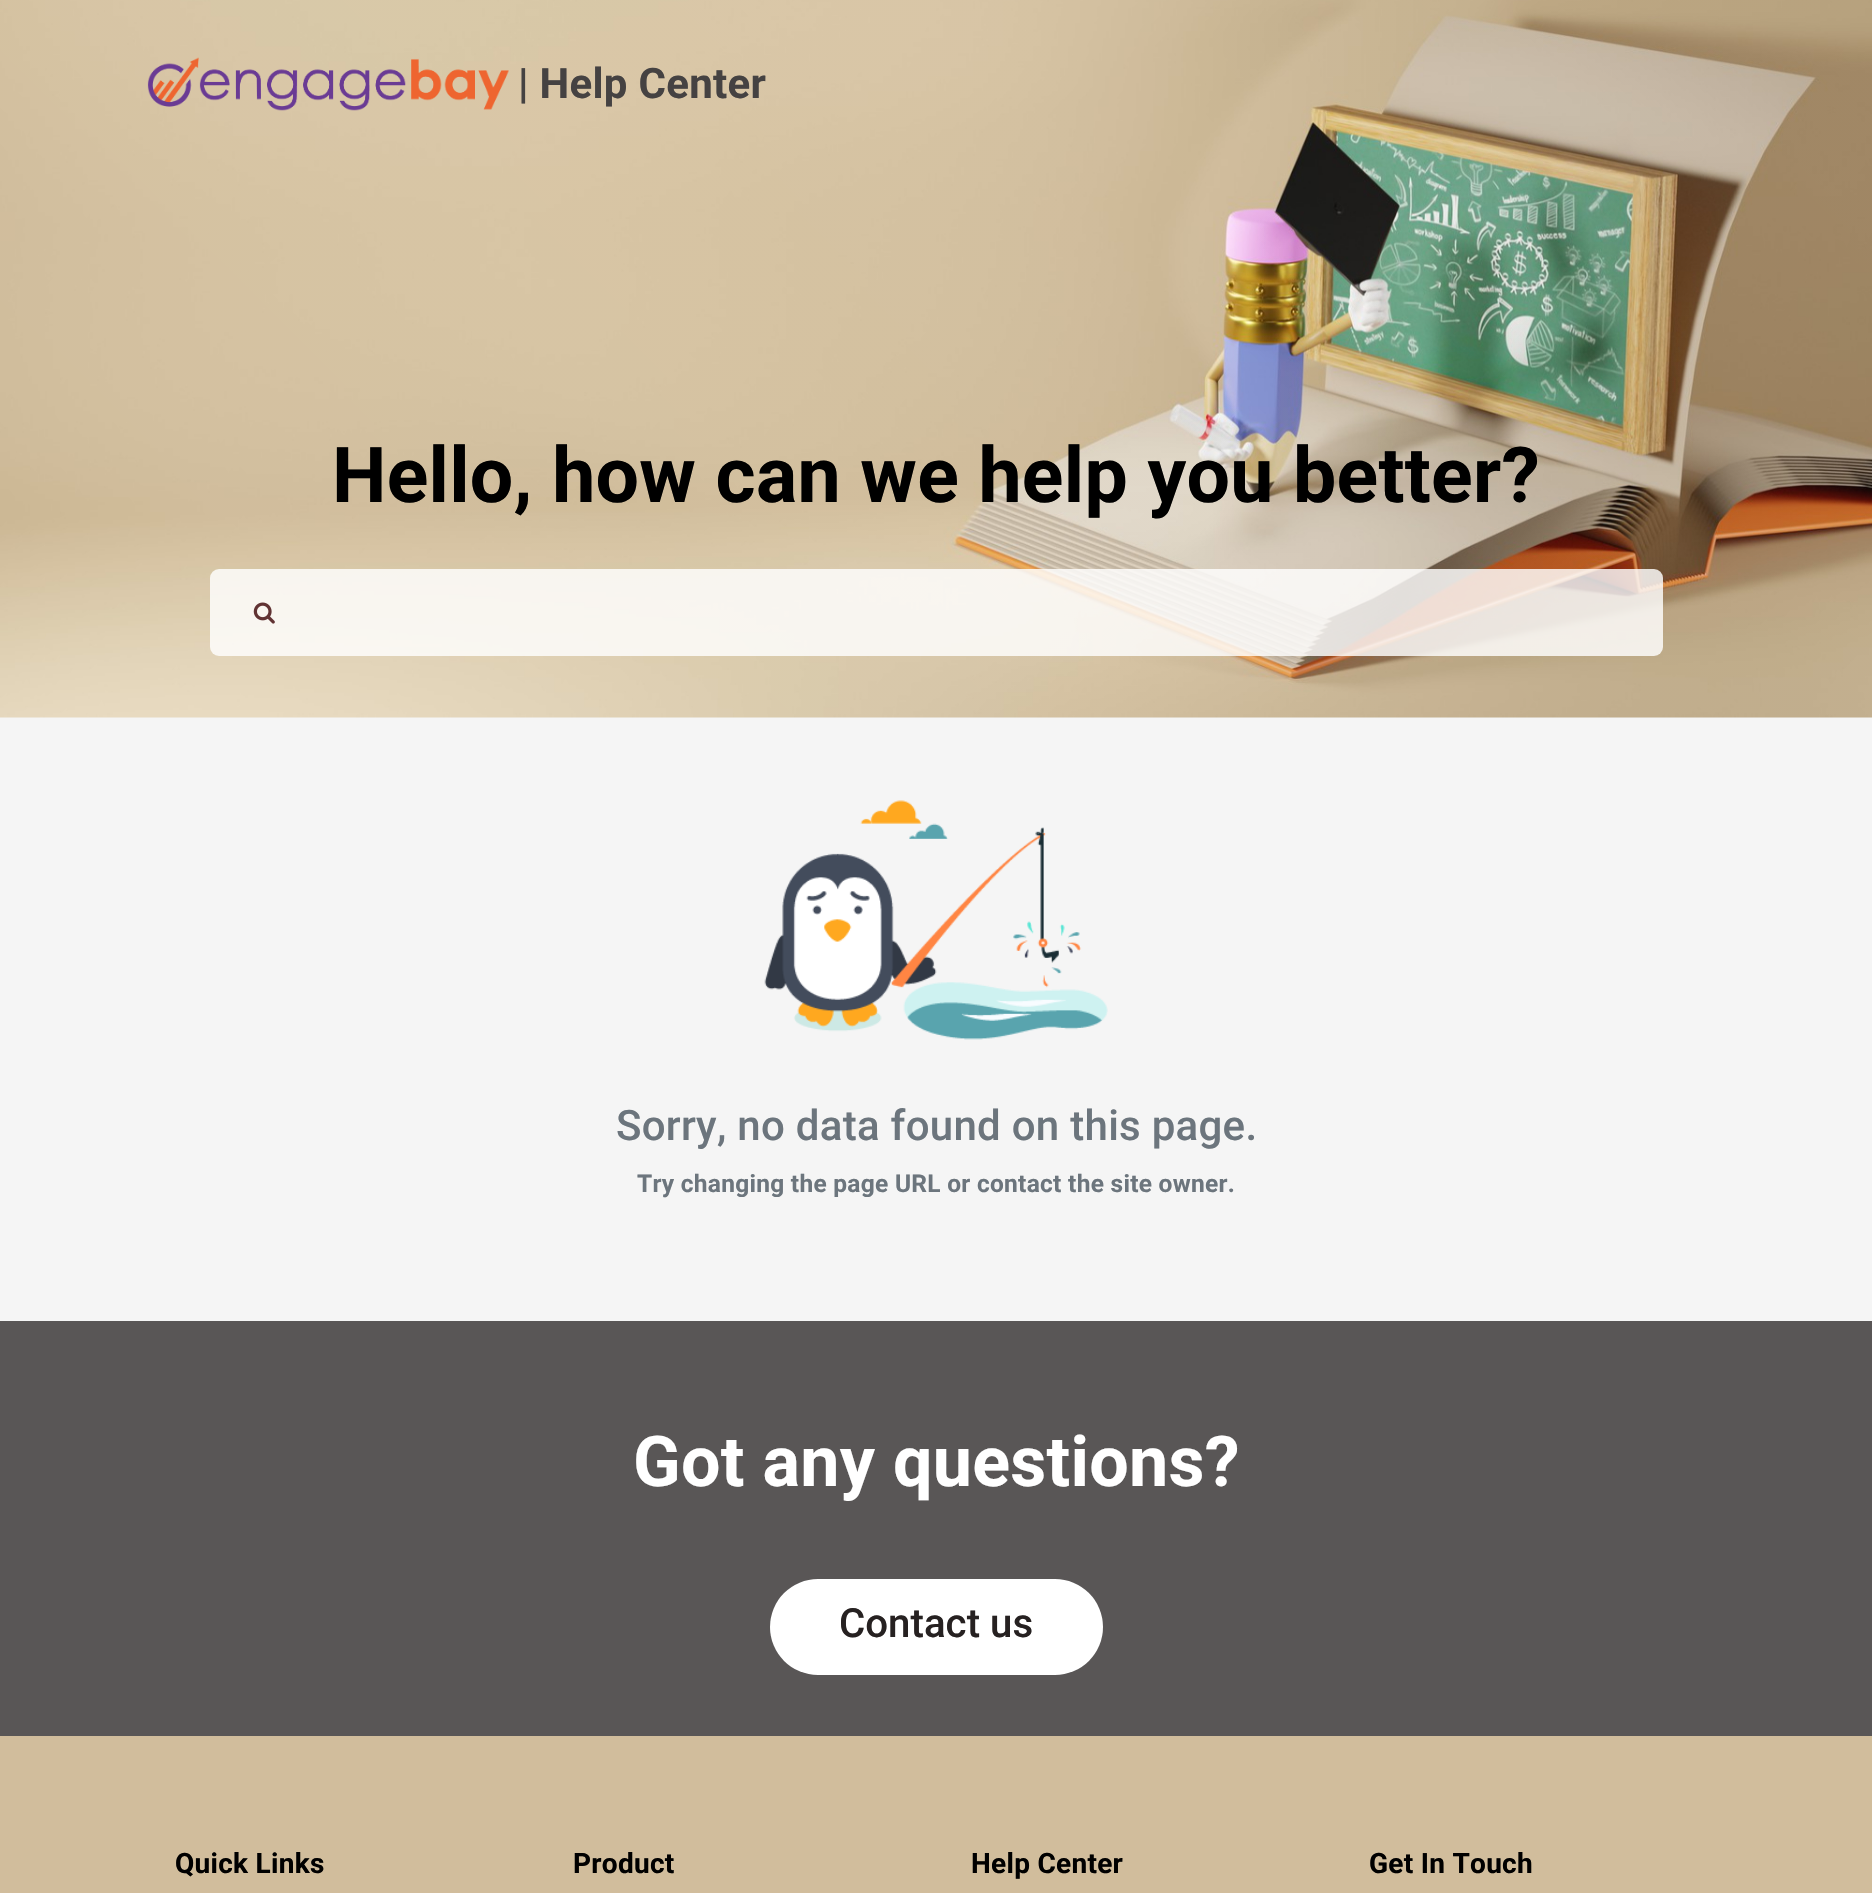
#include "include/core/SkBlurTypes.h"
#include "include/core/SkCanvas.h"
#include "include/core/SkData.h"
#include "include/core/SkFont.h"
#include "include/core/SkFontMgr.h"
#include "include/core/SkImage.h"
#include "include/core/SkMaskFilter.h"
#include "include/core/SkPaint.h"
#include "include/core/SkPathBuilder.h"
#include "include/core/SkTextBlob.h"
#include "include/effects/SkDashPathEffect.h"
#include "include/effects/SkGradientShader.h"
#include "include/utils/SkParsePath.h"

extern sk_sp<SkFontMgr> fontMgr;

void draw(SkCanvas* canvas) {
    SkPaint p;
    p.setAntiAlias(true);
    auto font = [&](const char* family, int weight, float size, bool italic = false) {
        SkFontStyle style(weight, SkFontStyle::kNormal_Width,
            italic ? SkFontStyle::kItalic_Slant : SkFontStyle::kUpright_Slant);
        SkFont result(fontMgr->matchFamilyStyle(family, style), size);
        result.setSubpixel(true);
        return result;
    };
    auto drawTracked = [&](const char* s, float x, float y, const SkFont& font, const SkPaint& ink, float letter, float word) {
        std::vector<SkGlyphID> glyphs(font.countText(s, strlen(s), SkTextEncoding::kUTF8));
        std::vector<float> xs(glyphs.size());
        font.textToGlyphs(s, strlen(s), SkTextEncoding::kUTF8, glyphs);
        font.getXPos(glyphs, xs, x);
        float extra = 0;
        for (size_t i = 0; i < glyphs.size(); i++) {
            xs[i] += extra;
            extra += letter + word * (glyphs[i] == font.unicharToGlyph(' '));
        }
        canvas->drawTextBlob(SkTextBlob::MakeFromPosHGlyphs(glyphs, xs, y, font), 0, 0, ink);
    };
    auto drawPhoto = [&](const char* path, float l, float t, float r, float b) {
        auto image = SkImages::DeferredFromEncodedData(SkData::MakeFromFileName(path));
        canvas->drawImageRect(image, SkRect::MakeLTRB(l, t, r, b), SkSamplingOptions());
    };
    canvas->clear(0xFFF5F5F5);
    drawPhoto("media/1.png", 0, 0, 1872, 718);
    drawPhoto("media/2.png", 147, 57, 509, 111);
    auto font1 = font("Roboto", 700, 42);
    p.setColor(0xFF454242);
    drawTracked("| Help Center", 518, 98, font1, p, 0.28f, 0);
    auto font2 = font("Roboto", 700, 77);
    p.setColor(0xFF000000);
    drawTracked("Hello, how can we help you better?", 332, 502, font2, p, 0.28f, 0);
    p.setColor(0xCFFFFFFF);
    canvas->drawRoundRect(SkRect::MakeLTRB(210, 569, 1663, 656), 9, 9, p);
    drawPhoto("media/3.png", 253, 602, 275, 624);
    drawPhoto("media/4.png", 764, 800, 1108, 1040);
    auto font3 = font("Roboto", 500, 42);
    p.setColor(0xFF6C757D);
    drawTracked("Sorry, no data found on this page.", 616, 1140, font3, p, 0.28f, 0);
    auto font4 = font("Roboto", 700, 24.5f);
    drawTracked("Try changing the page URL or contact the site owner.", 637, 1192, font4, p, 0.28f, 0);
    p.setColor(0xFF595656);
    canvas->drawRect(SkRect::MakeLTRB(0, 1321, 1872, 1736), p);
    auto font5 = font("Roboto", 700, 70);
    p.setColor(0xFFFFFFFF);
    drawTracked("Got any questions?", 633, 1486, font5, p, 0.28f, 0);
    canvas->drawRoundRect(SkRect::MakeLTRB(770, 1579, 1103, 1675), 48, 48, p);
    auto font6 = font("Roboto", 500, 40.25f);
    p.setColor(0xFF262121);
    canvas->drawString("Contact us", 839, 1637, font6, p);
    p.setColor(0xFFD1BD9C);
    canvas->drawRect(SkRect::MakeLTRB(0, 1736, 1872, 1893), p);
    auto font7 = font("Roboto", 700, 28);
    p.setColor(0xFF000000);
    {
        const struct { const char* s; float x, y; } items[] = {
            {"Quick Links", 175, 1873},
            {"Product", 573, 1873},
            {"Help Center", 971, 1873},
            {"Get In Touch", 1369, 1873},
        };
        for (auto [s, x, y] : items) {
            drawTracked(s, x, y, font7, p, 0.28f, 0);
        }
    }
}
